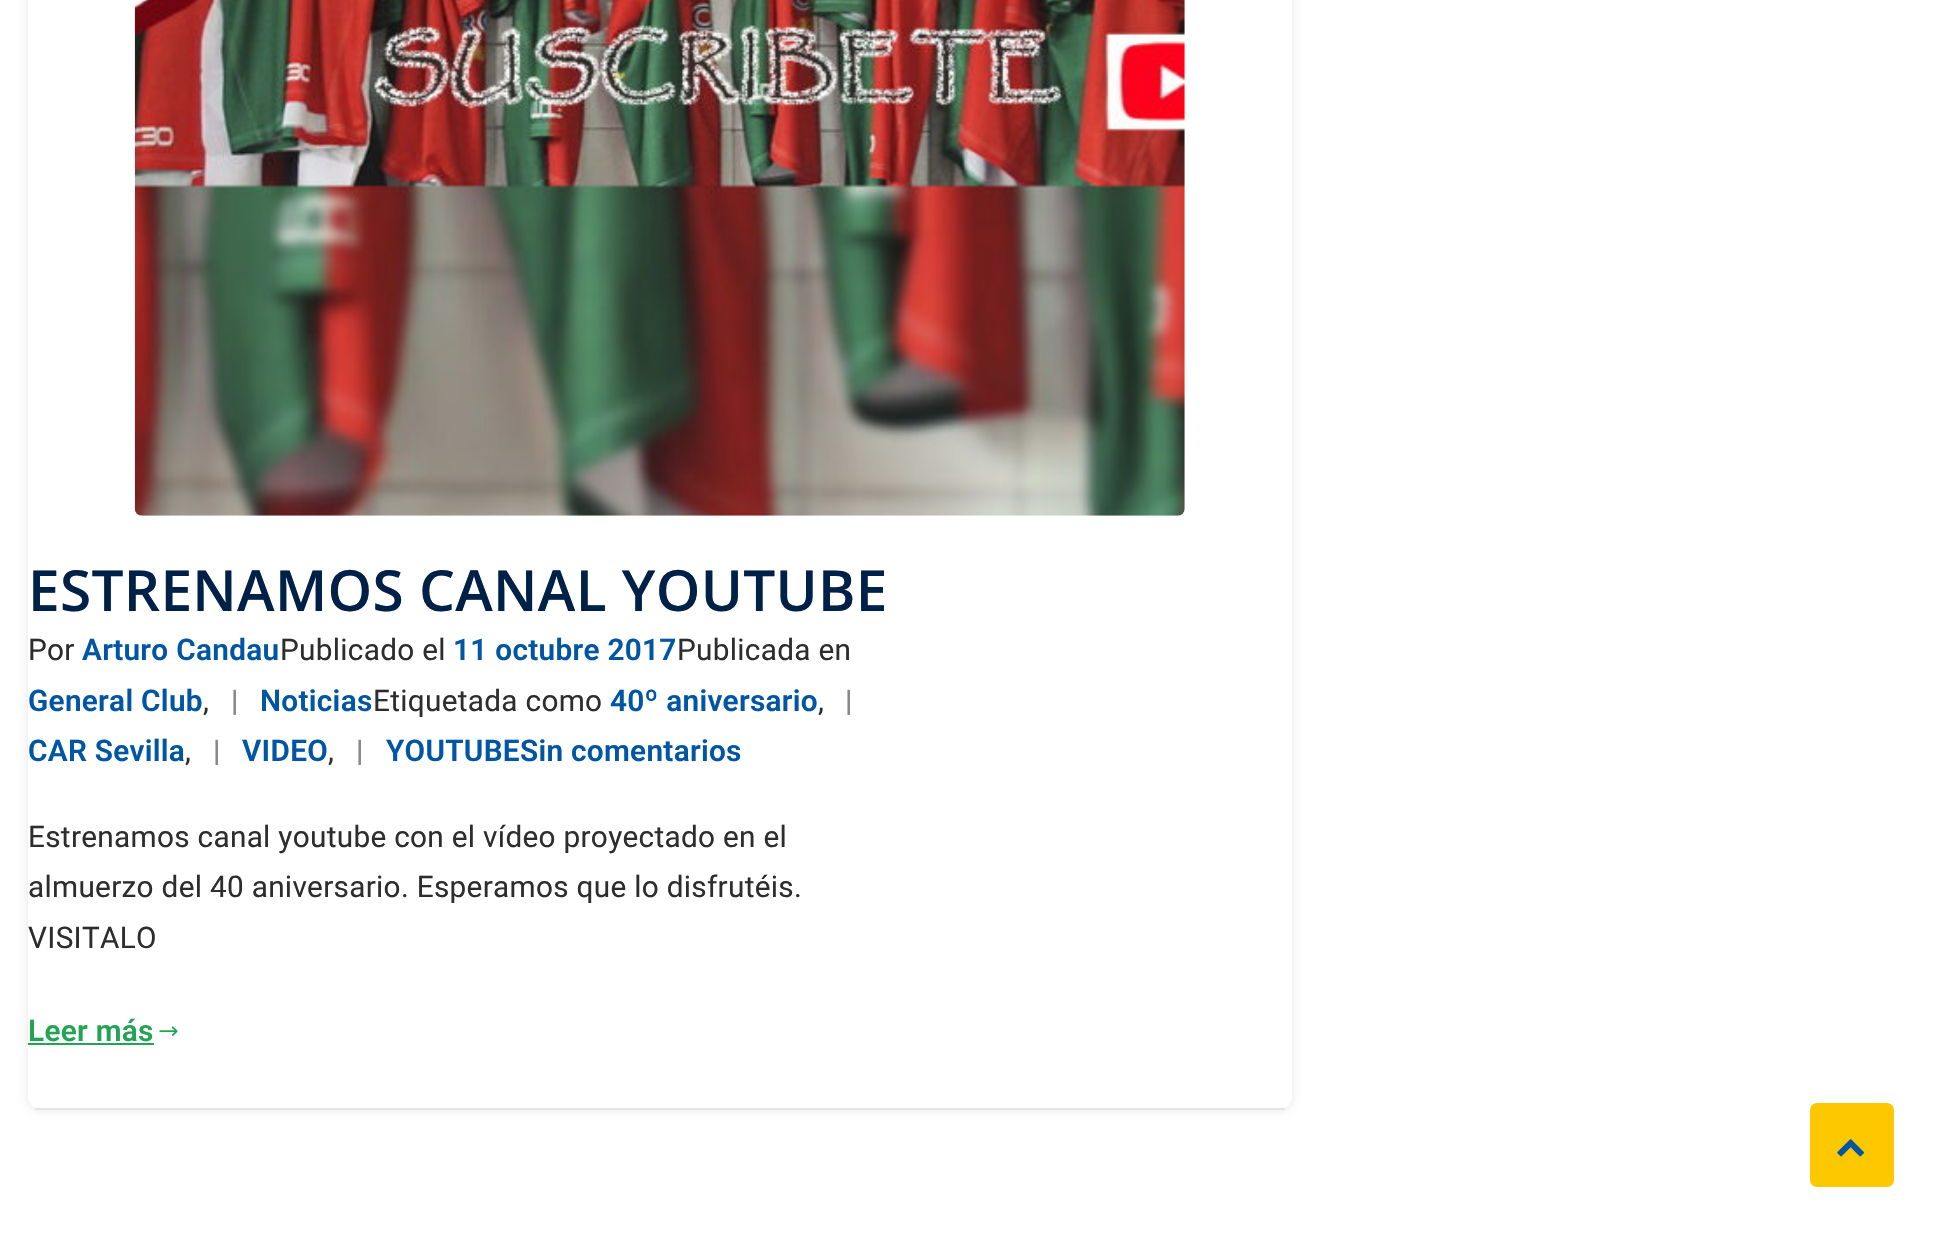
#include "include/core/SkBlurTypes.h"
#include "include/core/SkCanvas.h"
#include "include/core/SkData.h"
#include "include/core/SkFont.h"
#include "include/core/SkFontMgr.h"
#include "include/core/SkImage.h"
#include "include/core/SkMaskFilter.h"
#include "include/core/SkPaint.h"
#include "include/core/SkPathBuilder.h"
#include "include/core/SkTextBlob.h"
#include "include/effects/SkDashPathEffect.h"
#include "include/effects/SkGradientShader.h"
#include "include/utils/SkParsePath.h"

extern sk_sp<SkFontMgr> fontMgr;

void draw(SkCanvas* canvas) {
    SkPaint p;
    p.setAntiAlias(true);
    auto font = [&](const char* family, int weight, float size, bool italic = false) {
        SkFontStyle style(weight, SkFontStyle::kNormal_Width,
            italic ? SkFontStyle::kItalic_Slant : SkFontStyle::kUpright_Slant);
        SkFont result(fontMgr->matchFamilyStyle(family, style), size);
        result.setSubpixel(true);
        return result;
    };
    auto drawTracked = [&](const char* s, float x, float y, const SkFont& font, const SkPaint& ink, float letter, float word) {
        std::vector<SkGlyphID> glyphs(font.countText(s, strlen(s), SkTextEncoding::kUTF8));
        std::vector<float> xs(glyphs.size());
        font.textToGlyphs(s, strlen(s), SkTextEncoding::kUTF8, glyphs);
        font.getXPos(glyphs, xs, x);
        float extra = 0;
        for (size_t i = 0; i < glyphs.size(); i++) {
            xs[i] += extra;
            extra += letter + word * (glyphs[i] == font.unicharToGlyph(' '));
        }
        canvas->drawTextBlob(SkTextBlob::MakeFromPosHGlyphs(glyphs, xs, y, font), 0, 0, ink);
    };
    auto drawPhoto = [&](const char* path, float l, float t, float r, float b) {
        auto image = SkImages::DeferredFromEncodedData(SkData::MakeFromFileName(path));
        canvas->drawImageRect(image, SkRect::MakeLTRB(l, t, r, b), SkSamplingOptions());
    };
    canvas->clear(0xFFFFFFFF);
    p.setColor(0x1A000000);
    p.setMaskFilter(SkMaskFilter::MakeBlur(kNormal_SkBlurStyle, 5));
    canvas->drawRoundRect(SkRect::MakeLTRB(28, -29, 1292, 1110), 14, 14, p);
    p.setMaskFilter(nullptr);
    p.setColor(0xFFFFFFFF);
    canvas->drawRoundRect(SkRect::MakeLTRB(28, -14, 1292, 1110), 14, 14, p);
    p.setColor(0xFFE4E4E7);
    canvas->drawRect(SkRect::MakeLTRB(35, 1108, 1285, 1110), p);
    drawPhoto("media/1.png", 134, 0, 1185, 516);
    auto font1 = font("Open Sans", 600, 56.75f);
    p.setColor(0xFF002147);
    drawTracked("ESTRENAMOS CANAL YOUTUBE", 28, 611, font1, p, 0.3f, 0);
    auto font2 = font("Roboto", 400, 29.75f);
    p.setColor(0xFF2D2D2D);
    drawTracked("Por", 28, 660, font2, p, 0.3f, 0);
    auto font3 = font("Roboto", 600, 29.75f);
    p.setColor(0xFF0055A5);
    drawTracked("Arturo Candau", 82, 660, font3, p, 0.3f, 0);
    p.setColor(0xFF2D2D2D);
    drawTracked("Publicado el", 280, 660, font2, p, 0.3f, 0);
    p.setColor(0xFF0055A5);
    drawTracked("11 octubre 2017", 453, 660, font3, p, 0.3f, 0);
    p.setColor(0xFF2D2D2D);
    drawTracked("Publicada en", 677, 660, font2, p, 0.3f, 0);
    p.setColor(0xFF0055A5);
    drawTracked("General Club", 28, 711, font3, p, 0.3f, 0);
    p.setColor(0xFF2D2D2D);
    drawTracked(",", 203, 711, font2, p, 0.3f, 0);
    p.setColor(0xFF888888);
    drawTracked("|", 231, 711, font3, p, 0.3f, 0);
    p.setColor(0xFF0055A5);
    drawTracked("Noticias", 260, 711, font3, p, 0.3f, 0);
    p.setColor(0xFF2D2D2D);
    drawTracked("Etiquetada como", 373, 711, font2, p, 0.3f, 0);
    p.setColor(0xFF0055A5);
    drawTracked("40º aniversario", 610, 711, font3, p, 0.3f, 0);
    p.setColor(0xFF2D2D2D);
    drawTracked(",", 818, 711, font2, p, 0.3f, 0);
    p.setColor(0xFF888888);
    drawTracked("|", 845, 711, font3, p, 0.3f, 0);
    p.setColor(0xFF0055A5);
    drawTracked("CAR Sevilla", 28, 761, font3, p, 0.3f, 0);
    p.setColor(0xFF2D2D2D);
    drawTracked(",", 185, 761, font2, p, 0.3f, 0);
    p.setColor(0xFF888888);
    drawTracked("|", 213, 761, font3, p, 0.3f, 0);
    p.setColor(0xFF0055A5);
    drawTracked("VIDEO", 242, 761, font3, p, 0.3f, 0);
    p.setColor(0xFF2D2D2D);
    drawTracked(",", 328, 761, font2, p, 0.3f, 0);
    p.setColor(0xFF888888);
    drawTracked("|", 356, 761, font3, p, 0.3f, 0);
    p.setColor(0xFF0055A5);
    drawTracked("YOUTUBESin comentarios", 386, 761, font3, p, 0.3f, 0);
    p.setColor(0xFF2D2D2D);
    {
        const struct { const char* s; float x, y; } items[] = {
            {"Estrenamos canal youtube con el vídeo proyectado en el", 28, 847},
            {"almuerzo del 40 aniversario. Esperamos que lo disfrutéis.", 28, 897},
            {"VISITALO", 28, 948},
        };
        for (auto [s, x, y] : items) {
            drawTracked(s, x, y, font2, p, 0.3f, 0);
        }
    }
    p.setColor(0xFF23A455);
    drawTracked("Leer más", 28, 1041, font3, p, 0.3f, 0);
    canvas->drawRect(SkRect::MakeLTRB(28, 1043, 154, 1045), p);
    drawPhoto("media/2.png", 159, 1026, 178, 1036);
    p.setColor(0xFFFDC800);
    canvas->drawRoundRect(SkRect::MakeLTRB(1810, 1103, 1894, 1187), 7, 7, p);
    drawPhoto("media/3.png", 1837, 1139, 1864, 1157);
}
